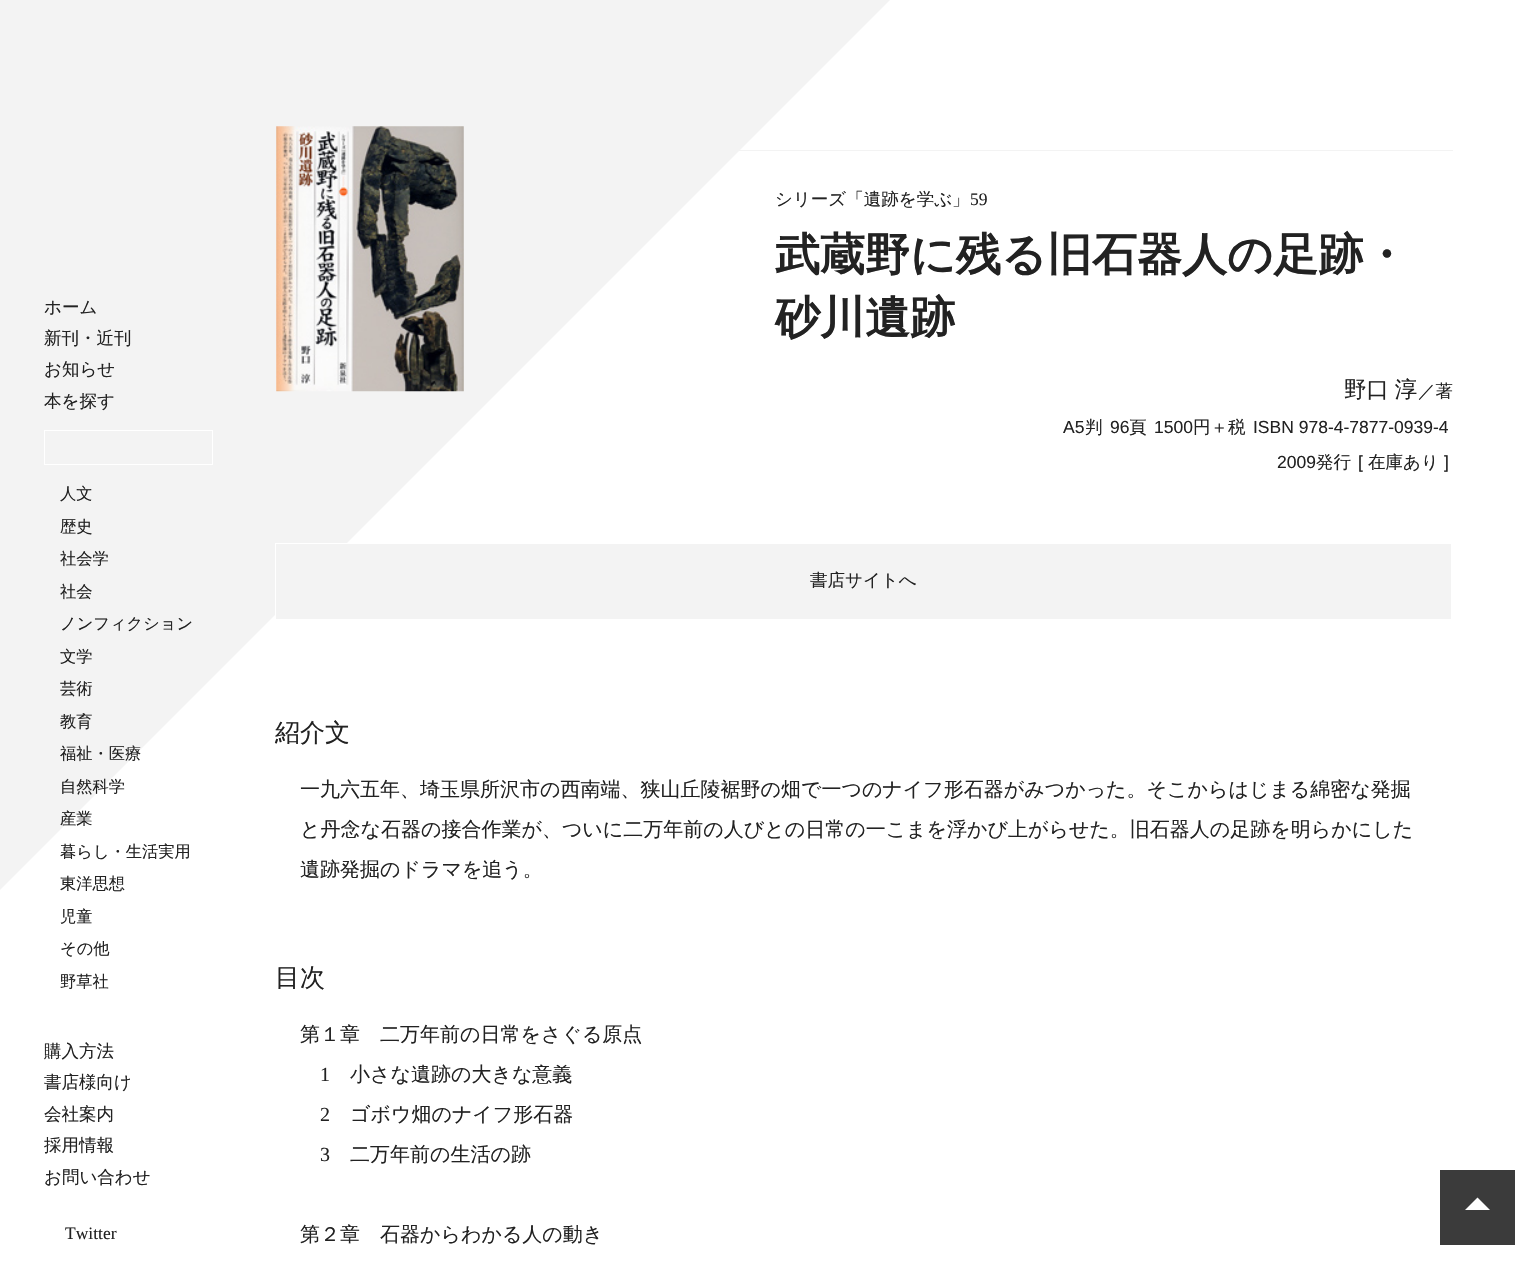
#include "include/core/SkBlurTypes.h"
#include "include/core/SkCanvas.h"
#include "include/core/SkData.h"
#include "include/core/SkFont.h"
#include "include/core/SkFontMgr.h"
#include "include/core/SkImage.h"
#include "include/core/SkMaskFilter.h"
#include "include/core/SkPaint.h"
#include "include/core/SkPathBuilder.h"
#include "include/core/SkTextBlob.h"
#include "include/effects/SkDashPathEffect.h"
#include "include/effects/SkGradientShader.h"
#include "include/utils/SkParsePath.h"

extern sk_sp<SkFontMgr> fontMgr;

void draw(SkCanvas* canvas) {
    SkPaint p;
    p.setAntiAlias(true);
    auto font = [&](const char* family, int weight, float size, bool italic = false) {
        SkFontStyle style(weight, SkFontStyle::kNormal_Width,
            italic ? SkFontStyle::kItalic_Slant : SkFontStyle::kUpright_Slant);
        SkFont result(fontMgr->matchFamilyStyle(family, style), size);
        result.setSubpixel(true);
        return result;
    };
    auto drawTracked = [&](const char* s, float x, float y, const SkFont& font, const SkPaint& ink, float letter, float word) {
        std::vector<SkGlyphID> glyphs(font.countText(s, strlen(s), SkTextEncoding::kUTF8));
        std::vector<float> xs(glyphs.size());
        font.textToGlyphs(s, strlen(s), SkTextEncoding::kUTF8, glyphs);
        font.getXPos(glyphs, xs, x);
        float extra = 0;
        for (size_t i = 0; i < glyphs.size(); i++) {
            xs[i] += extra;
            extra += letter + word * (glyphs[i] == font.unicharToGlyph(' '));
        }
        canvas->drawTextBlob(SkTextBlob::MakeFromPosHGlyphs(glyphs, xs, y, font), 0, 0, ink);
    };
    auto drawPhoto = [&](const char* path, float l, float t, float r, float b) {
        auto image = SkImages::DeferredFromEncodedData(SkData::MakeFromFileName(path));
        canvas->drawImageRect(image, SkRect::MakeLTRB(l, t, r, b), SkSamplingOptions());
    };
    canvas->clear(0xFFFFFFFF);
    drawPhoto("media/1.png", 0, 0, 890, 890);
    auto font1 = font("WenQuanYi Zen Hei", 500, 17.5f);
    p.setColor(0xFF222222);
    {
        const struct { const char* s; float x, y; } items[] = {
            {"ホーム", 44, 313},
            {"新刊・近刊", 44, 344},
            {"お知らせ", 44, 375},
            {"本を探す", 44, 407},
        };
        for (auto [s, x, y] : items) {
            canvas->drawString(s, x, y, font1, p);
        }
    }
    p.setStyle(SkPaint::kStroke_Style);
    p.setStrokeWidth(1);
    p.setColor(0xFFFFFFFF);
    canvas->drawRect(SkRect::MakeLTRB(44.5f, 430.5f, 212.5f, 464.5f), p);
    auto font2 = font("WenQuanYi Zen Hei", 500, 16.25f);
    p.setStyle(SkPaint::kFill_Style);
    p.setColor(0xFF222222);
    {
        const struct { const char* s; float x, y; } items[] = {
            {"人文", 60, 499},
            {"歴史", 60, 532},
            {"社会学", 60, 564},
            {"社会", 60, 597},
            {"ノンフィクション", 60, 629},
            {"文学", 60, 662},
            {"芸術", 60, 694},
            {"教育", 60, 727},
            {"福祉・医療", 60, 759},
            {"自然科学", 60, 792},
            {"産業", 60, 824},
            {"暮らし・生活実用", 60, 857},
            {"東洋思想", 60, 889},
            {"児童", 60, 922},
            {"その他", 60, 954},
            {"野草社", 60, 987},
        };
        for (auto [s, x, y] : items) {
            canvas->drawString(s, x, y, font2, p);
        }
    }
    {
        const struct { const char* s; float x, y; } items[] = {
            {"購入方法", 44, 1057},
            {"書店様向け", 44, 1088},
            {"会社案内", 44, 1120},
            {"採用情報", 44, 1151},
            {"お問い合わせ", 44, 1183},
        };
        for (auto [s, x, y] : items) {
            canvas->drawString(s, x, y, font1, p);
        }
    }
    auto font3 = font("Liberation Serif", 400, 17.5f);
    canvas->drawString("Twitter", 65, 1239, font3, p);
    drawPhoto("media/2.png", 276, 126, 464, 392);
    p.setColor(0xFFF3F3F3);
    canvas->drawRect(SkRect::MakeLTRB(739, 150, 1453, 151), p);
    p.setColor(0xFF222222);
    canvas->drawString("シリーズ「遺跡を学ぶ」", 775, 205, font1, p);
    canvas->drawString("59", 970, 205, font3, p);
    auto font4 = font("WenQuanYi Zen Hei", 700, 45);
    canvas->drawString("武蔵野に残る旧石器人の足跡・", 775, 270, font4, p);
    canvas->drawString("砂川遺跡", 775, 333, font4, p);
    auto font5 = font("WenQuanYi Zen Hei", 500, 22.5f);
    drawTracked("野口 淳", 1344, 397, font5, p, 0, -1);
    canvas->drawString("／著", 1418, 397, font1, p);
    auto font6 = font("Liberation Sans", 400, 17.5f);
    canvas->drawString("A5", 1063, 433, font6, p);
    canvas->drawString("判", 1085, 433, font1, p);
    canvas->drawString("96", 1110, 433, font6, p);
    canvas->drawString("頁", 1129, 433, font1, p);
    canvas->drawString("1500", 1154, 433, font6, p);
    canvas->drawString("円＋税", 1193, 433, font1, p);
    canvas->drawString("ISBN 978-4-7877-0939-4", 1253, 433, font6, p);
    canvas->drawString("2009", 1277, 468, font6, p);
    canvas->drawString("発行", 1316, 468, font1, p);
    canvas->drawString("[", 1358, 468, font6, p);
    canvas->drawString("在庫あり", 1368, 468, font1, p);
    canvas->drawString("]", 1444, 468, font6, p);
    p.setStyle(SkPaint::kStroke_Style);
    p.setColor(0xFFFFFFFF);
    canvas->drawRect(SkRect::MakeLTRB(275.5f, 543.5f, 1452.5f, 619.5f), p);
    p.setStyle(SkPaint::kFill_Style);
    p.setColor(0xFFF3F3F3);
    canvas->drawRect(SkRect::MakeLTRB(276, 544, 1451, 619), p);
    p.setColor(0xFF222222);
    canvas->drawString("書店サイトへ", 810, 586, font1, p);
    auto font7 = font("WenQuanYi Zen Hei", 500, 25);
    canvas->drawString("紹介文", 275, 741, font7, p);
    auto font8 = font("WenQuanYi Zen Hei", 500, 20);
    {
        const struct { const char* s; float x, y; } items[] = {
            {"一九六五年、埼玉県所沢市の西南端、狭山丘陵裾野の畑で一つのナイフ形石器がみつかった。そこからはじまる綿密な発掘", 300, 796},
            {"と丹念な石器の接合作業が、ついに二万年前の人びとの日常の一こまを浮かび上がらせた。旧石器人の足跡を明らかにした", 300, 836},
            {"遺跡発掘のドラマを追う。", 300, 876},
        };
        for (auto [s, x, y] : items) {
            canvas->drawString(s, x, y, font8, p);
        }
    }
    canvas->drawString("目次", 275, 986, font7, p);
    canvas->drawString("第１章　二万年前の日常をさぐる原点", 300, 1041, font8, p);
    auto font9 = font("Liberation Serif", 400, 20);
    canvas->drawString("1", 320, 1081, font9, p);
    canvas->drawString("小さな遺跡の大きな意義", 350, 1081, font8, p);
    canvas->drawString("2", 320, 1121, font9, p);
    canvas->drawString("ゴボウ畑のナイフ形石器", 350, 1121, font8, p);
    canvas->drawString("3", 320, 1161, font9, p);
    canvas->drawString("二万年前の生活の跡", 350, 1161, font8, p);
    canvas->drawString("第２章　石器からわかる人の動き", 300, 1241, font8, p);
    p.setColor(0xFF3B3B3B);
    canvas->drawRect(SkRect::MakeLTRB(1440, 1170, 1515, 1245), p);
    p.setColor(0xFFFFFFFF);
    canvas->drawPath(SkPathBuilder().moveTo(1490, 1210).lineTo(1465, 1210).lineTo(1477.5f, 1197.5f).close().detach(), p);
}
